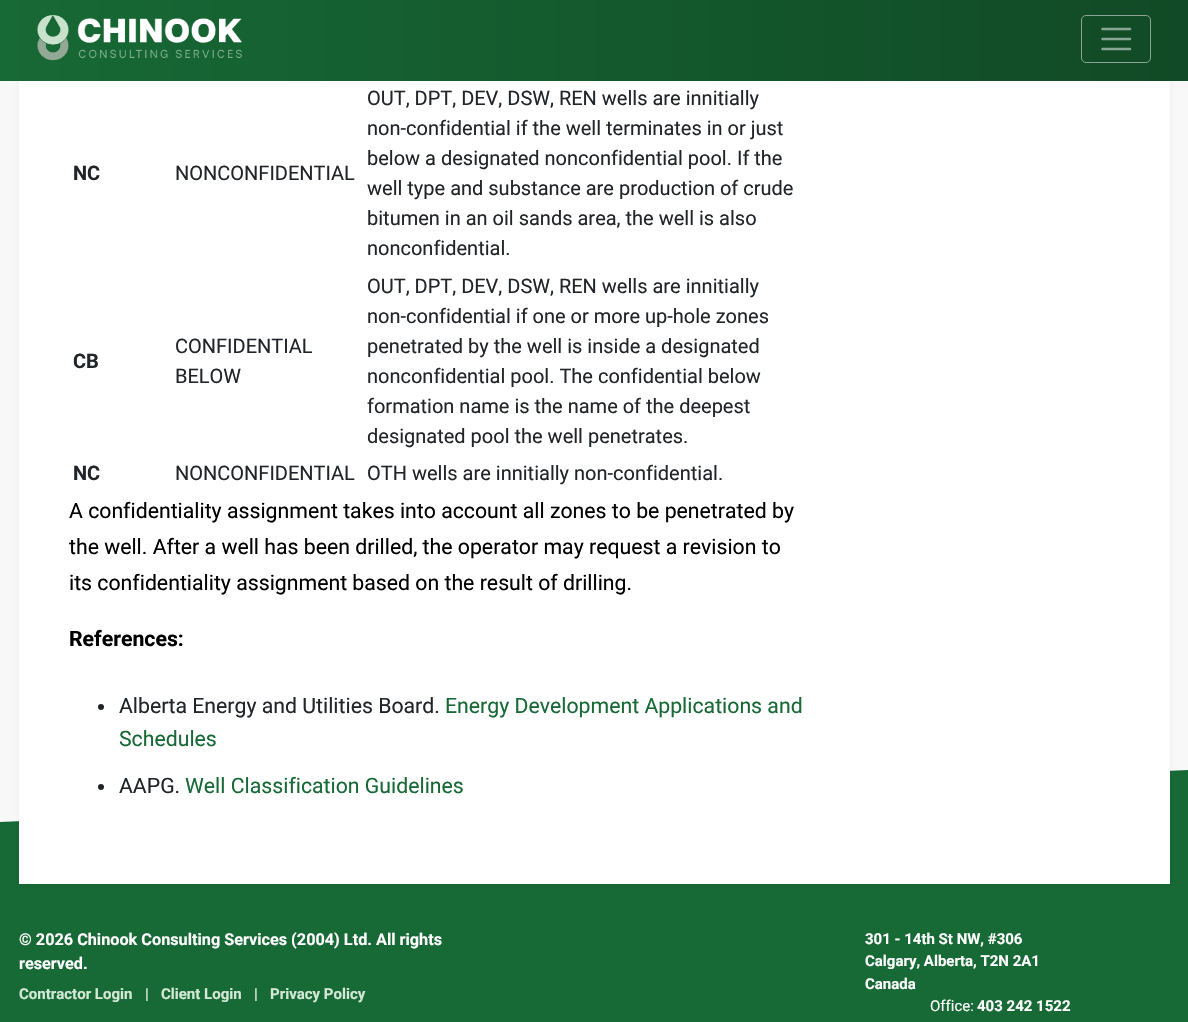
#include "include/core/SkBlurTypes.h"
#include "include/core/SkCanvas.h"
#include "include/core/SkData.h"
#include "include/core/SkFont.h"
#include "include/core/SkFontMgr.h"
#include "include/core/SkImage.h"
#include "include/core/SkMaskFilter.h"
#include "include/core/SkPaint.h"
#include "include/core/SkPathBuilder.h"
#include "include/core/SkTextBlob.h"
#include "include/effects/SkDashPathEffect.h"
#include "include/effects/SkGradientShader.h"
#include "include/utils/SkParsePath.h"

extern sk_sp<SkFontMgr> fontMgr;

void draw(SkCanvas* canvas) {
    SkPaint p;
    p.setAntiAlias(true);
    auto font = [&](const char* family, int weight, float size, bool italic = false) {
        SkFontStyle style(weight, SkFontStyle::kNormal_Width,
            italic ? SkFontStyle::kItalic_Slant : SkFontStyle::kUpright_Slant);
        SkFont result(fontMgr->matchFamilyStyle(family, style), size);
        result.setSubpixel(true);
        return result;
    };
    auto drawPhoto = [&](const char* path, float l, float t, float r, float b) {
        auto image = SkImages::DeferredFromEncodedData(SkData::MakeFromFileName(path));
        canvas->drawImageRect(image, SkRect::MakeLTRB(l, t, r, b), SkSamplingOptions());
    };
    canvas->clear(0xFFF8F8F8);
    p.setColor(0xFF176935);
    canvas->drawPath(SkPathBuilder().moveTo(0, 822).lineTo(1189, 770).lineTo(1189, 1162).lineTo(0, 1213).close().detach(), p);
    p.setColor(0x0D000000);
    p.setMaskFilter(SkMaskFilter::MakeBlur(kNormal_SkBlurStyle, 2.5f));
    canvas->drawRect(SkRect::MakeLTRB(19, -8, 1170, 885), p);
    p.setMaskFilter(nullptr);
    {
        const SkColor colors[] = {0xFF176935, 0xFF114A26};
        const float stops[] = {0, 1};
        const SkPoint ends[] = {{0, 41}, {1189, 41}};
        p.setShader(SkGradientShader::MakeLinear(ends, colors, stops, 2, SkTileMode::kClamp));
        p.setAlpha(255);
    }
    canvas->drawRect(SkRect::MakeLTRB(0, 0, 1188, 81), p);
    drawPhoto("media/1.png", 37, 15, 243, 61);
    p.setStyle(SkPaint::kStroke_Style);
    p.setStrokeWidth(1);
    p.setShader(nullptr);
    p.setColor(0xFF88A593);
    canvas->drawRoundRect(SkRect::MakeLTRB(1081.5f, 15.5f, 1150.5f, 62.5f), 4.5f, 4.5f, p);
    p.setStrokeWidth(2.5f);
    p.setStrokeCap(SkPaint::kRound_Cap);
    p.setColor(0xFF88A693);
    canvas->drawPath(SkPathBuilder().moveTo(1102.5f, 29).lineTo(1130, 29).moveTo(1102.5f, 39).lineTo(1130, 39).moveTo(1102.5f, 49).lineTo(1130, 49).detach(), p);
    p.setStyle(SkPaint::kFill_Style);
    p.setColor(0xFFFFFFFF);
    canvas->drawRect(SkRect::MakeLTRB(19, 81, 1170, 884), p);
    auto font1 = font("Roboto", 700, 20);
    p.setColor(0xFF212529);
    canvas->drawString("NC", 73, 180, font1, p);
    auto font2 = font("Roboto", 400, 20);
    {
        const struct { const char* s; float x, y; } items[] = {
            {"NONCONFIDENTIAL", 175, 180},
            {"OUT, DPT, DEV, DSW, REN wells are innitially", 367, 105},
            {"non-confidential if the well terminates in or just", 367, 135},
            {"below a designated nonconfidential pool. If the", 367, 165},
            {"well type and substance are production of crude", 367, 195},
            {"bitumen in an oil sands area, the well is also", 367, 225},
            {"nonconfidential.", 367, 255},
        };
        for (auto [s, x, y] : items) {
            canvas->drawString(s, x, y, font2, p);
        }
    }
    canvas->drawString("CB", 73, 368, font1, p);
    {
        const struct { const char* s; float x, y; } items[] = {
            {"CONFIDENTIAL", 175, 353},
            {"BELOW", 175, 383},
            {"OUT, DPT, DEV, DSW, REN wells are innitially", 367, 293},
            {"non-confidential if one or more up-hole zones", 367, 323},
            {"penetrated by the well is inside a designated", 367, 353},
            {"nonconfidential pool. The confidential below", 367, 383},
            {"formation name is the name of the deepest", 367, 413},
            {"designated pool the well penetrates.", 367, 443},
        };
        for (auto [s, x, y] : items) {
            canvas->drawString(s, x, y, font2, p);
        }
    }
    canvas->drawString("NC", 73, 480, font1, p);
    canvas->drawString("NONCONFIDENTIAL", 175, 480, font2, p);
    canvas->drawString("OTH wells are innitially non-confidential.", 367, 480, font2, p);
    auto font3 = font("Roboto", 400, 21.25f);
    p.setColor(0xFF000000);
    {
        const struct { const char* s; float x, y; } items[] = {
            {"A confidentiality assignment takes into account all zones to be penetrated by", 69, 518},
            {"the well. After a well has been drilled, the operator may request a revision to", 69, 554},
            {"its confidentiality assignment based on the result of drilling.", 69, 590},
        };
        for (auto [s, x, y] : items) {
            canvas->drawString(s, x, y, font3, p);
        }
    }
    auto font4 = font("Roboto", 700, 21.25f);
    canvas->drawString("References:", 69, 646, font4, p);
    p.setColor(0xFF212529);
    canvas->drawCircle(101, 707, 3, p);
    canvas->drawString("Alberta Energy and Utilities Board.", 119, 713, font3, p);
    p.setColor(0xFF176935);
    canvas->drawString("Energy Development Applications and", 445, 713, font3, p);
    canvas->drawString("Schedules", 119, 746, font3, p);
    p.setColor(0xFF212529);
    canvas->drawCircle(101, 787, 3, p);
    canvas->drawString("AAPG.", 119, 793, font3, p);
    p.setColor(0xFF176935);
    canvas->drawString("Well Classification Guidelines", 185, 793, font3, p);
    auto font5 = font("Roboto", 700, 16.25f);
    p.setColor(0xFFFFFFFF);
    canvas->drawString("© 2026 Chinook Consulting Services (2004) Ltd. All rights", 19, 945, font5, p);
    canvas->drawString("reserved.", 19, 969, font5, p);
    auto font6 = font("Roboto", 700, 15);
    p.setColor(0xFFD3E8D5);
    {
        const struct { const char* s; float x, y; } items[] = {
            {"Contractor Login", 19, 999},
            {"|", 145, 999},
            {"Client Login", 161, 999},
            {"|", 254, 999},
            {"Privacy Policy", 270, 999},
        };
        for (auto [s, x, y] : items) {
            canvas->drawString(s, x, y, font6, p);
        }
    }
    p.setColor(0xFFFFFFFF);
    {
        const struct { const char* s; float x, y; } items[] = {
            {"301 - 14th St NW, #306", 865, 944},
            {"Calgary, Alberta, T2N 2A1", 865, 966},
            {"Canada", 865, 989},
        };
        for (auto [s, x, y] : items) {
            canvas->drawString(s, x, y, font6, p);
        }
    }
    auto font7 = font("Roboto", 400, 15);
    canvas->drawString("Office:", 930, 1011, font7, p);
    canvas->drawString("403 242 1522", 977, 1011, font6, p);
}
